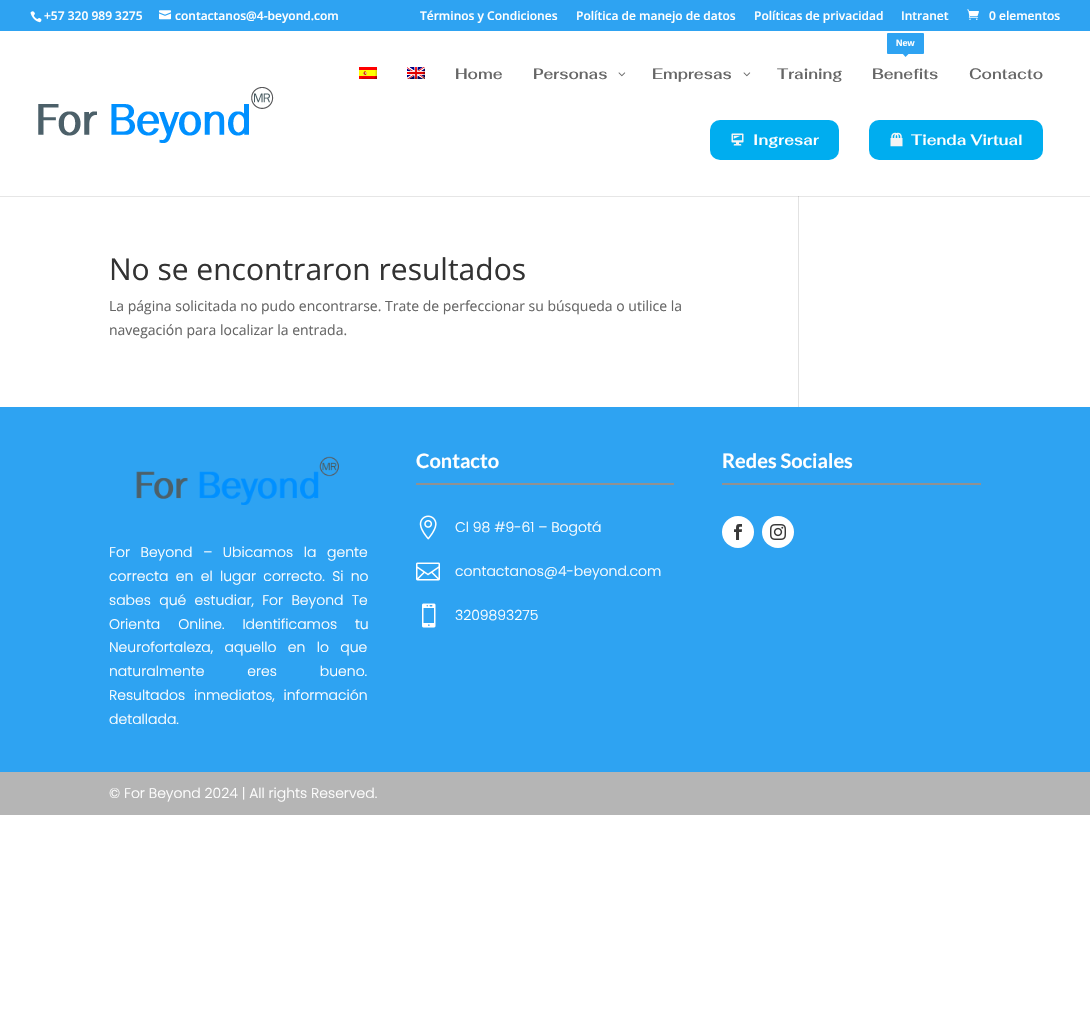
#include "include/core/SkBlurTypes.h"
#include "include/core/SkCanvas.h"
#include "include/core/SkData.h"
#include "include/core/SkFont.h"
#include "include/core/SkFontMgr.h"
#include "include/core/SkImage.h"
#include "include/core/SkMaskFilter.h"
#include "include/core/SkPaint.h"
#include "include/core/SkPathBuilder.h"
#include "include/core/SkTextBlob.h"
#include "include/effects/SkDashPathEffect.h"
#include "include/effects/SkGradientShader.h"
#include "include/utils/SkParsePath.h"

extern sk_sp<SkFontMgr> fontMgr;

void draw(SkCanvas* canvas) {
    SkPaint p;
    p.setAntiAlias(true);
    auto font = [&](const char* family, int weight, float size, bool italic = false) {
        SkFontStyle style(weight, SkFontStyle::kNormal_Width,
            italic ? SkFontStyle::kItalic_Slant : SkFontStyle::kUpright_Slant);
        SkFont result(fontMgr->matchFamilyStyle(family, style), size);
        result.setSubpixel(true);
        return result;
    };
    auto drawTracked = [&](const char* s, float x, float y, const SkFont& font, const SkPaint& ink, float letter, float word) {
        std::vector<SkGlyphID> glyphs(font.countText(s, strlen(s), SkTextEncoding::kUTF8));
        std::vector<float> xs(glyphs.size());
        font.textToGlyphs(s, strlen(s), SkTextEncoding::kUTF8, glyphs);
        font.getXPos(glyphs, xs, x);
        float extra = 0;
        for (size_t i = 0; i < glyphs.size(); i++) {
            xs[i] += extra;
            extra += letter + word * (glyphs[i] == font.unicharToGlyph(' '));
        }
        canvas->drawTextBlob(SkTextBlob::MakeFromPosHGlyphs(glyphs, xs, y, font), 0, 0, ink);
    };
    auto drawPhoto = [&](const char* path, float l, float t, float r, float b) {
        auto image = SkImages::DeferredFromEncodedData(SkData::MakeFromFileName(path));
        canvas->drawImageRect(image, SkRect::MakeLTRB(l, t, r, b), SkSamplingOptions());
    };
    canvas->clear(0xFFFFFFFF);
    p.setColor(0xFFE6E6E6);
    canvas->drawRect(SkRect::MakeLTRB(0, 196, 1090, 197), p);
    p.setColor(0xFF2EA3F2);
    canvas->drawRect(SkRect::MakeLTRB(0, 0, 1090, 31), p);
    drawPhoto("media/1.png", 30, 11, 42, 23);
    auto font1 = font("Open Sans", 600, 12);
    p.setColor(0xFFFFFFFF);
    canvas->drawString("+57 320 989 3275", 44, 20, font1, p);
    drawPhoto("media/2.png", 159, 10, 171, 20);
    {
        const struct { const char* s; float x, y; } items[] = {
            {"contactanos@4-beyond.com", 175, 20},
            {"Términos y Condiciones", 420, 20},
            {"Política de manejo de datos", 576, 20},
            {"Políticas de privacidad", 754, 20},
            {"Intranet", 901, 20},
        };
        for (auto [s, x, y] : items) {
            canvas->drawString(s, x, y, font1, p);
        }
    }
    drawPhoto("media/3.png", 967, 9, 979, 20);
    canvas->drawString("0 elementos", 989, 20, font1, p);
    drawPhoto("media/4.png", 38, 87, 274, 143);
    drawPhoto("media/5.png", 359, 67, 377, 79);
    drawPhoto("media/6.png", 407, 67, 425, 79);
    auto font2 = font("Fahkwang", 600, 15);
    p.setColor(0xFF666666);
    canvas->drawString("Home", 455, 79, font2, p);
    canvas->drawString("Personas", 533, 79, font2, p);
    drawPhoto("media/7.png", 618, 72, 626, 77);
    canvas->drawString("Empresas", 652, 79, font2, p);
    drawPhoto("media/7.png", 743, 72, 751, 77);
    canvas->drawString("Training", 777, 79, font2, p);
    p.setColor(0xFF2EA3F2);
    canvas->drawRoundRect(SkRect::MakeLTRB(887, 33, 924, 54), 1, 1, p);
    auto font3 = font("Liberation Sans", 700, 9);
    p.setColor(0xFFFFFFFF);
    canvas->drawString("New", 896, 46, font3, p);
    p.setColor(0xFF2EA3F2);
    canvas->drawPath(SkPathBuilder().moveTo(905.5f, 48.5f).lineTo(910, 52.5f).lineTo(905.5f, 57).lineTo(901.5f, 52.5f).close().detach(), p);
    p.setColor(0xFF666666);
    canvas->drawString("Benefits", 872, 79, font2, p);
    canvas->drawString("Contacto", 969, 79, font2, p);
    p.setColor(0xFF00ADEF);
    canvas->drawRoundRect(SkRect::MakeLTRB(710, 120, 839, 160), 10, 10, p);
    drawPhoto("media/8.png", 731, 133, 744, 146);
    p.setColor(0xFFFFFFFF);
    canvas->drawString("Ingresar", 753, 145, font2, p);
    p.setColor(0xFF00ADEF);
    canvas->drawRoundRect(SkRect::MakeLTRB(869, 120, 1043, 160), 10, 10, p);
    drawPhoto("media/9.png", 890, 132, 903, 147);
    p.setColor(0xFFFFFFFF);
    canvas->drawString("Tienda Virtual", 911, 145, font2, p);
    auto font4 = font("Open Sans", 400, 30);
    p.setColor(0xFF333333);
    canvas->drawString("No se encontraron resultados", 109, 280, font4, p);
    auto font5 = font("Open Sans", 400, 14);
    p.setColor(0xFF666666);
    canvas->drawString("La página solicitada no pudo encontrarse. Trate de perfeccionar su búsqueda o utilice la", 109, 311, font5, p);
    canvas->drawString("navegación para localizar la entrada.", 109, 335, font5, p);
    {
        const struct { float l, t, r, b; SkColor color; } items[] = {
            {798, 196, 799, 407, 0xFFE2E2E2},
            {798, 196, 799, 197, 0xFFCBCBCB},
            {0, 407, 1090, 772, 0xFF2EA3F2},
        };
        for (auto [l, t, r, b, color] : items) {
            p.setColor(color);
            canvas->drawRect(SkRect::MakeLTRB(l, t, r, b), p);
        }
    }
    auto font6 = font("Lato", 700, 20);
    p.setColor(0xFFFFFFFF);
    canvas->drawString("Contacto", 416, 468, font6, p);
    p.setColor(0xFF919191);
    canvas->drawRect(SkRect::MakeLTRB(416, 483, 674, 485), p);
    drawPhoto("media/10.png", 419, 515, 437, 540);
    auto font7 = font("Poppins", 300, 14);
    p.setColor(0xFFFFFFFF);
    canvas->drawString("Cl 98 #9-61 – Bogotá", 455, 532, font7, p);
    drawPhoto("media/11.png", 416, 562, 440, 581);
    canvas->drawString("contactanos@4-beyond.com", 455, 576, font7, p);
    drawPhoto("media/12.png", 422, 603, 436, 628);
    canvas->drawString("3209893275", 455, 620, font7, p);
    canvas->drawString("Redes Sociales", 722, 468, font6, p);
    p.setColor(0xFF919191);
    canvas->drawRect(SkRect::MakeLTRB(722, 483, 981, 485), p);
    p.setColor(0xFFFFFFFF);
    canvas->drawCircle(738, 532, 16, p);
    drawPhoto("media/13.png", 734, 524, 742, 540);
    canvas->drawCircle(778, 532, 16, p);
    drawPhoto("media/14.png", 770, 524, 786, 540);
    drawPhoto("media/15.png", 136, 456, 339, 505);
    drawTracked("For Beyond – Ubicamos la gente", 109, 557, font7, p, 0, 6.75f);
    drawTracked("correcta en el lugar correcto. Si no", 109, 581, font7, p, 0, 3.5f);
    drawTracked("sabes qué estudiar, For Beyond Te", 109, 605, font7, p, 0, 4.5f);
    drawTracked("Orienta Online. Identificamos tu", 109, 629, font7, p, 0, 14);
    drawTracked("Neurofortaleza, aquello en lo que", 109, 652, font7, p, 0, 7.5f);
    drawTracked("naturalmente eres bueno.", 109, 676, font7, p, 0, 39);
    drawTracked("Resultados inmediatos, información", 109, 700, font7, p, 0, 5);
    canvas->drawString("detallada.", 109, 724, font7, p);
    p.setColor(0xFFB5B5B5);
    canvas->drawRect(SkRect::MakeLTRB(0, 772, 1090, 815), p);
    p.setColor(0xFFFFFFFF);
    canvas->drawString("© For Beyond 2024 | All rights Reserved.", 109, 798, font7, p);
}
